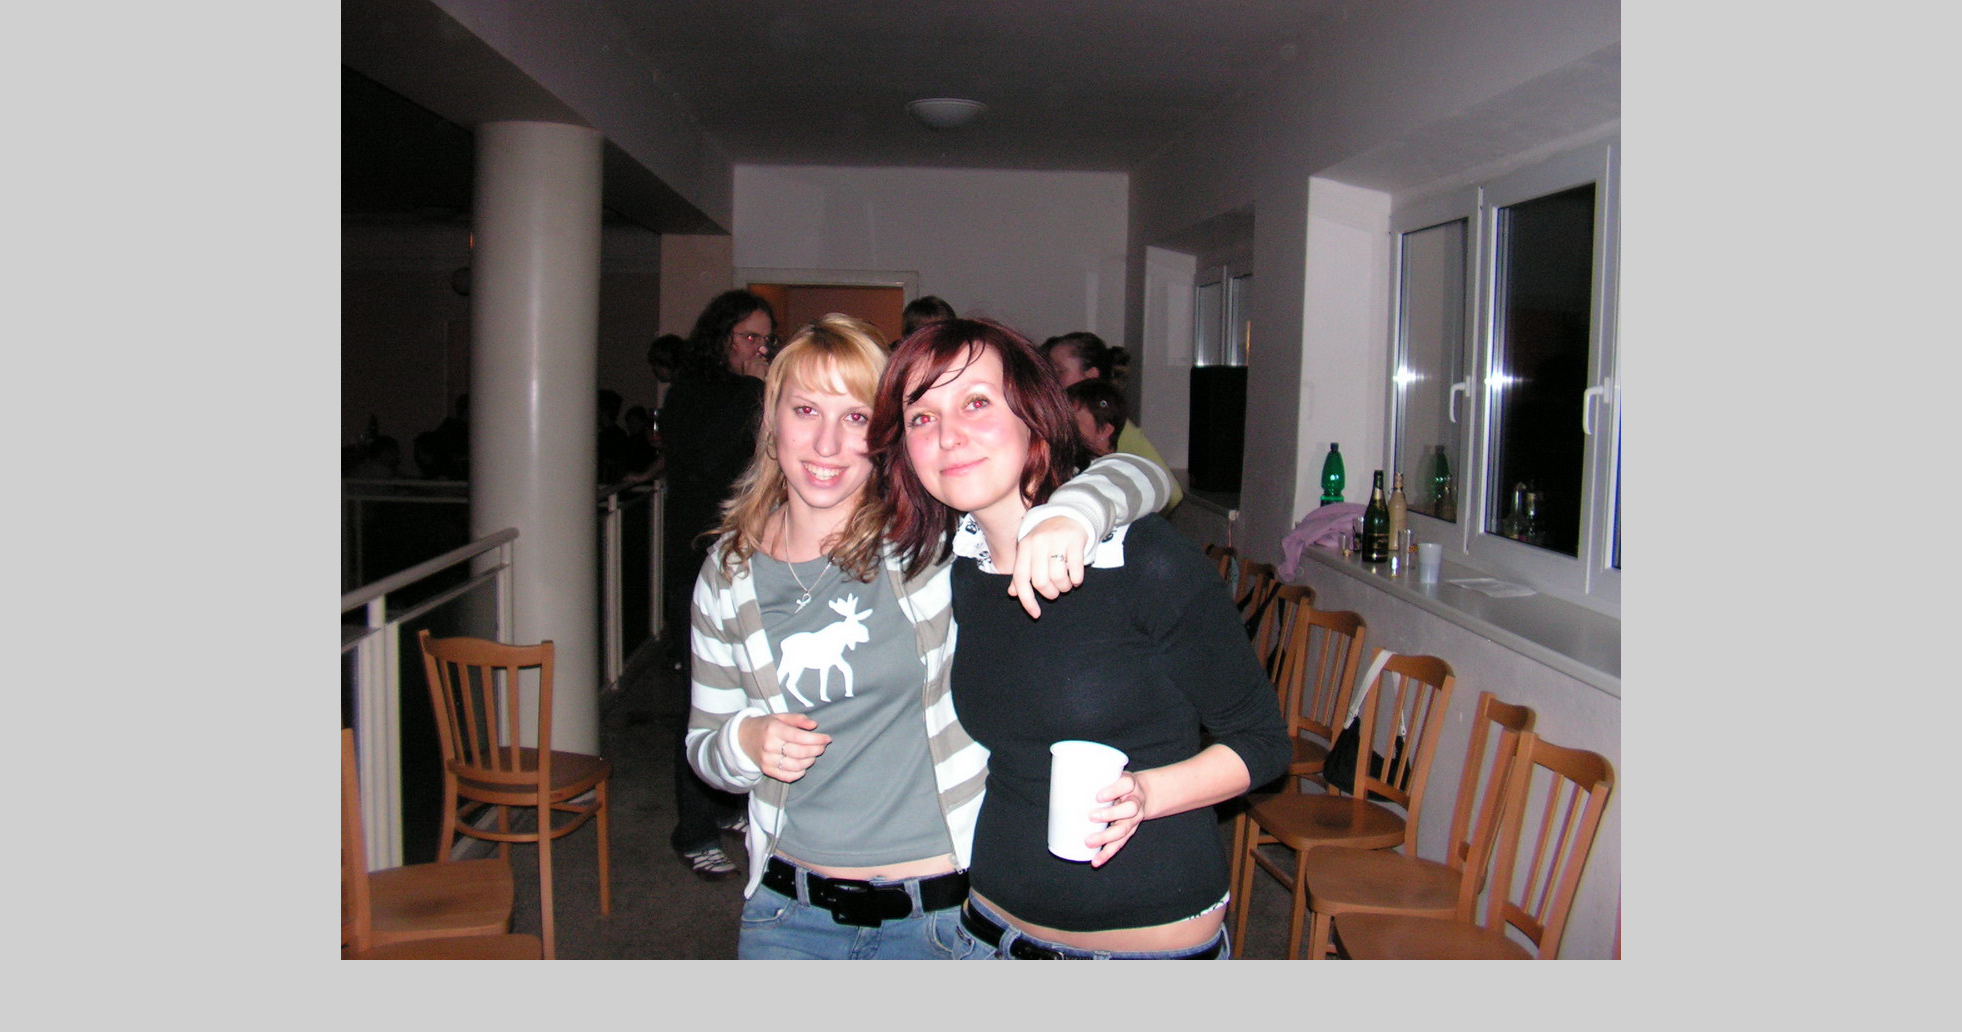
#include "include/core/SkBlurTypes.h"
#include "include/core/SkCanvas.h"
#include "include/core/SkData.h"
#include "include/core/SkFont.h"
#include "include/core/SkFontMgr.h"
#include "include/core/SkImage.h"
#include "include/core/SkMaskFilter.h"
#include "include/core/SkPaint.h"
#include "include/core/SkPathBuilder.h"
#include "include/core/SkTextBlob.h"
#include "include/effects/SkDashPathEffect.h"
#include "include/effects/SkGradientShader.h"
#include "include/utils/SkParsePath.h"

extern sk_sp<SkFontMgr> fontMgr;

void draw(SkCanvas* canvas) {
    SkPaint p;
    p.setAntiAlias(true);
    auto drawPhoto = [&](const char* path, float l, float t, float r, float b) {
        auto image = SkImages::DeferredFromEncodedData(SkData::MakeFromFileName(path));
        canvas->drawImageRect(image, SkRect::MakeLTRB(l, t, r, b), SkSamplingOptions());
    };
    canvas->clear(0xFFD0D0D0);
    drawPhoto("media/1.png", 341, 0, 1621, 960);
}
